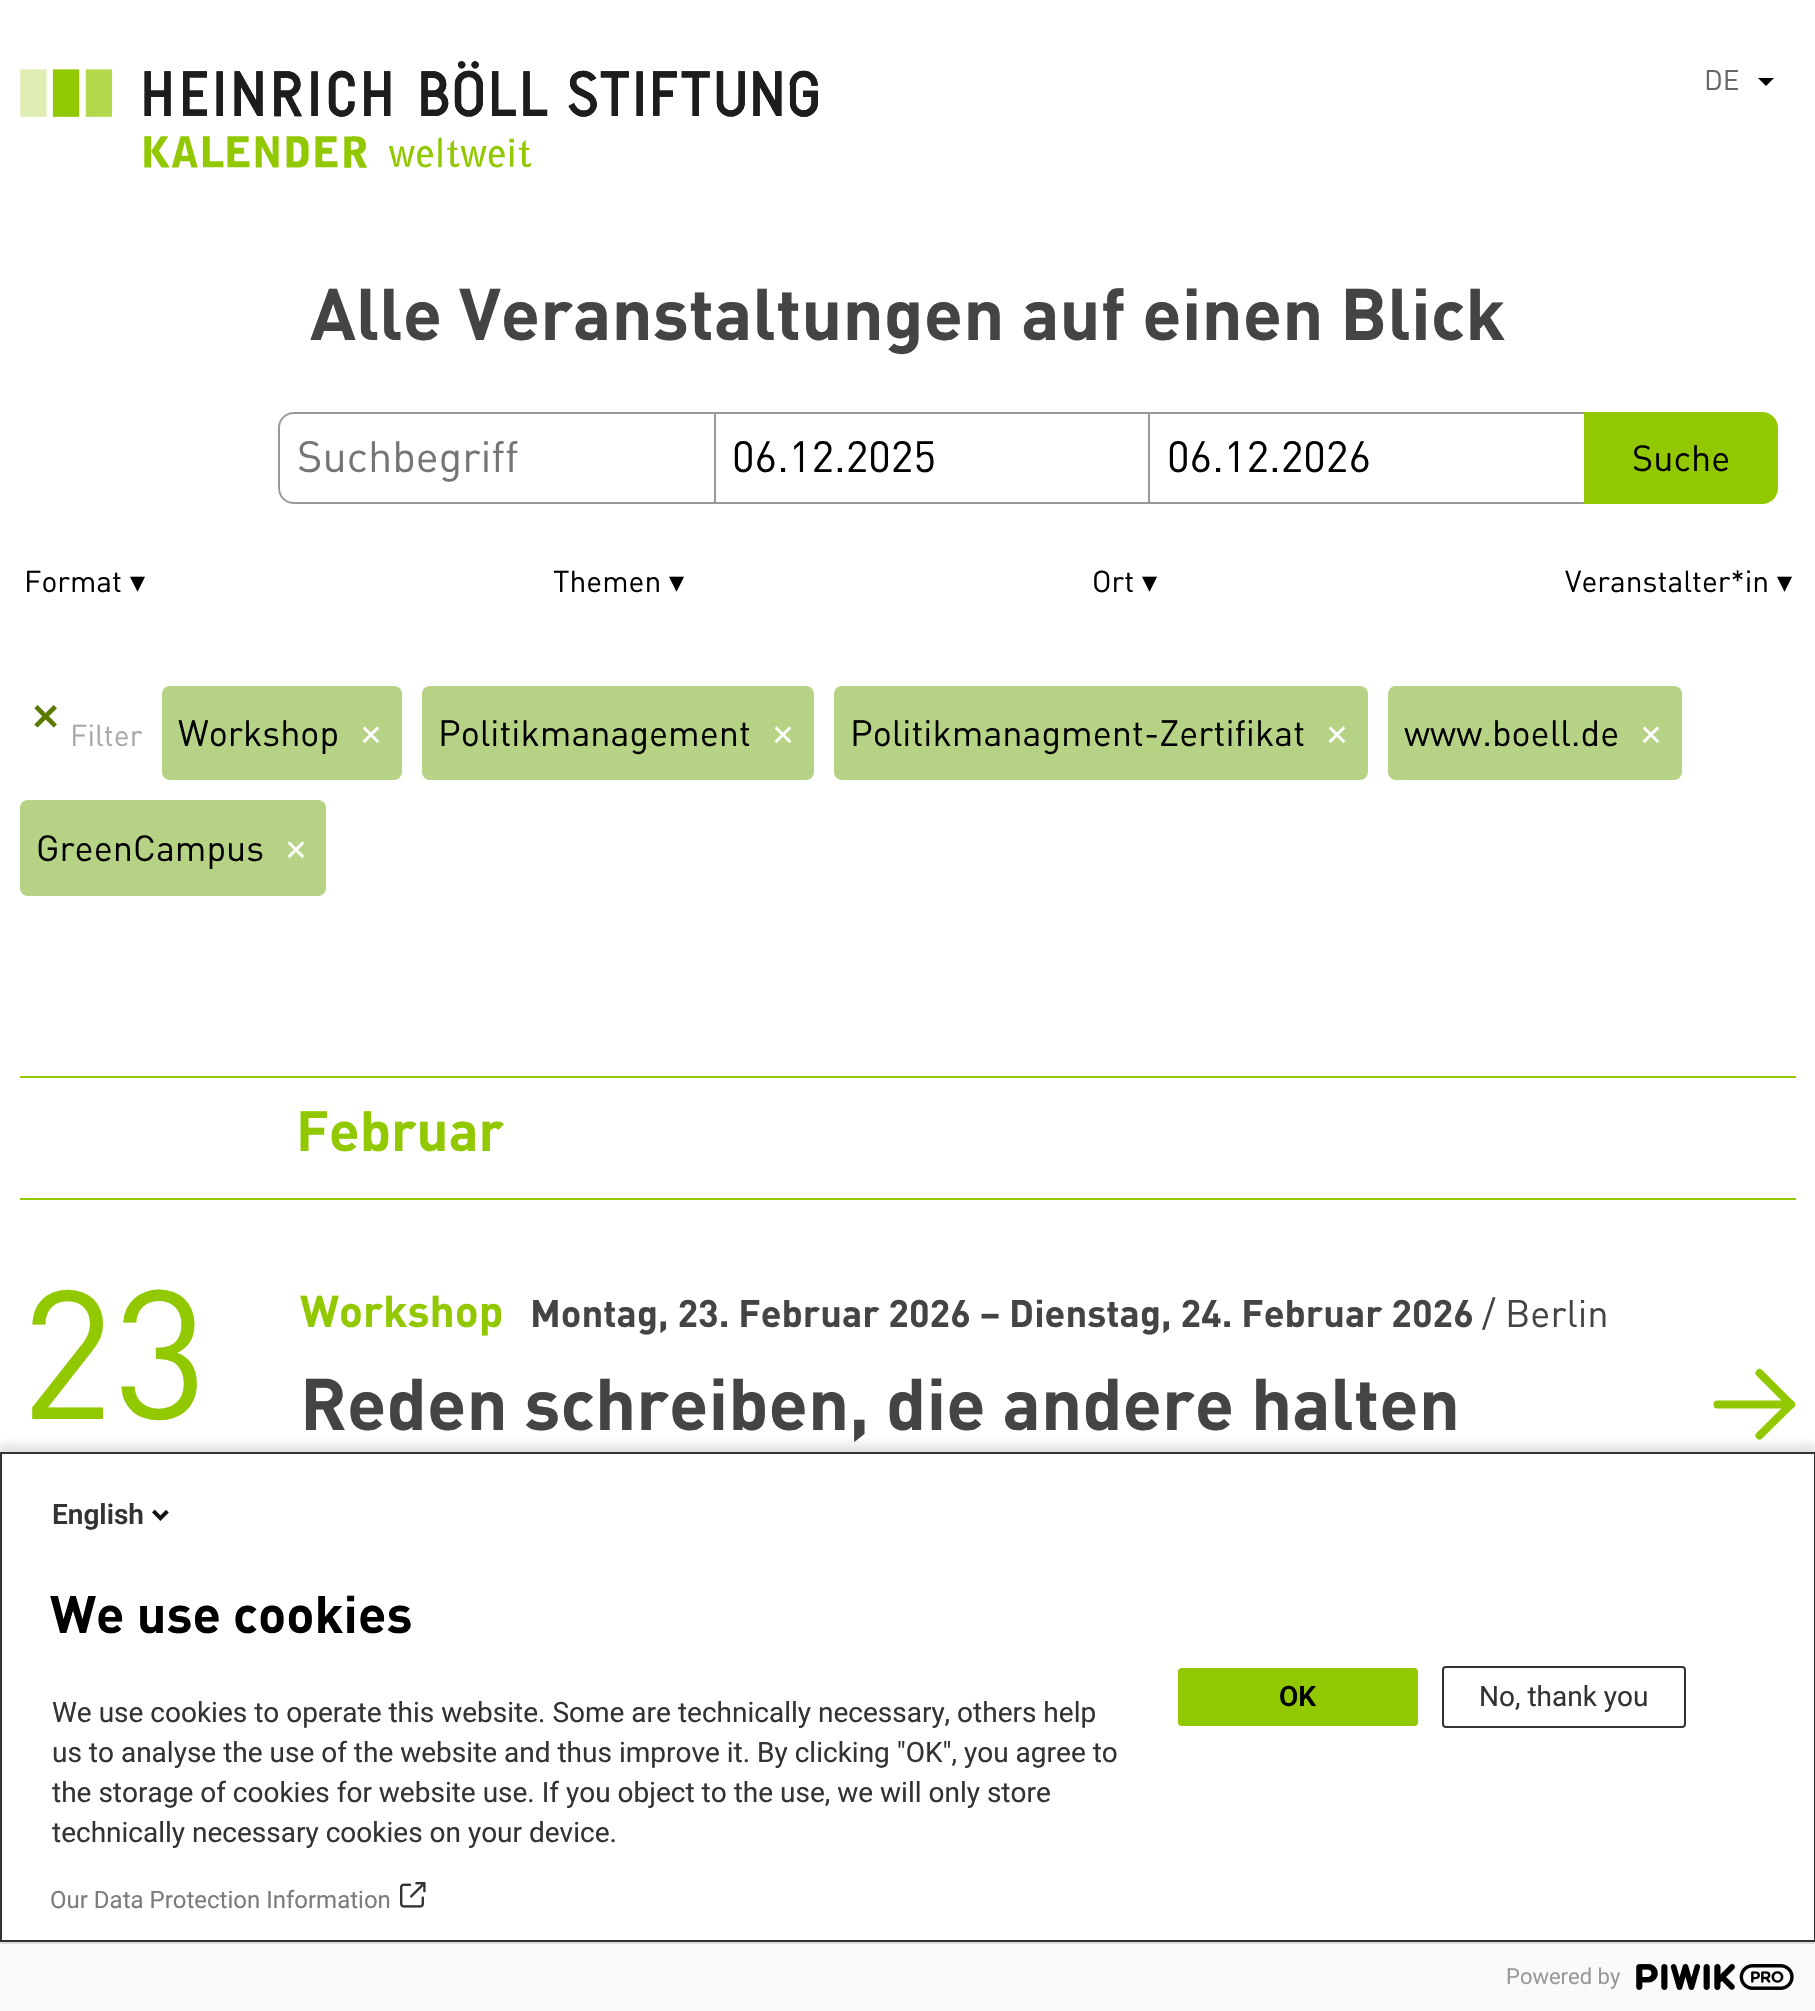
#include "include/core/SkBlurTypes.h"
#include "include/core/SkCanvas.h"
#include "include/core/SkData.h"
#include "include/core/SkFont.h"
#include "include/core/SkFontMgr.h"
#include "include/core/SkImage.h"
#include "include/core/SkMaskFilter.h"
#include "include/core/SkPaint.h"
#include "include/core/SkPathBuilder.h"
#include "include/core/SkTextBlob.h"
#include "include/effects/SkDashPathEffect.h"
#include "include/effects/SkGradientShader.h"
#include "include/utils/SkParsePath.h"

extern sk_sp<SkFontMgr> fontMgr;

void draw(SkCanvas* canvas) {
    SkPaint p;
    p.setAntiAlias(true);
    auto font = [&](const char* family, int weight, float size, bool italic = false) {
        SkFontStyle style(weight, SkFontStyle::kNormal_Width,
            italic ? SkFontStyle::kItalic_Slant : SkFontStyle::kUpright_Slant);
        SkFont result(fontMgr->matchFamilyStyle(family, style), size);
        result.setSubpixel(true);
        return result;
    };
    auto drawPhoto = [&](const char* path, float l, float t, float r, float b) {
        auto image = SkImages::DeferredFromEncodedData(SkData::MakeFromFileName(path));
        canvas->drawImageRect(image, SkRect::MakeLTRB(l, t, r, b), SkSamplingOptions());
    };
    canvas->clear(0xFFFFFFFF);
    drawPhoto("media/1.png", 20, 61, 818, 168);
    auto font1 = font("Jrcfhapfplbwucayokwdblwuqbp", 400, 28);
    p.setColor(0xFF666666);
    canvas->drawString("DE", 1704, 90, font1, p);
    p.setColor(0xFF000000);
    canvas->drawPath(SkPathBuilder().moveTo(1758, 78).lineTo(1774, 78).lineTo(1766, 86).close().detach(), p);
    auto font2 = font("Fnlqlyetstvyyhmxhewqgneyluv", 700, 72);
    p.setColor(0xFF444444);
    canvas->drawString("Alle Veranstaltungen auf einen Blick", 310, 340, font2, p);
    p.setColor(0xFF999999);
    canvas->drawPath(SkPathBuilder(SkPathFillType::kEvenOdd).moveTo(294, 412).lineTo(714, 412).lineTo(714, 504).lineTo(294, 504).cubicTo(285, 504, 278, 497, 278, 488).lineTo(278, 428).cubicTo(278, 419, 285, 412, 294, 412).close().moveTo(294, 414).lineTo(714, 414).lineTo(714, 502).lineTo(294, 502).cubicTo(286, 502, 280, 496, 280, 488).lineTo(280, 428).cubicTo(280, 420, 286, 414, 294, 414).close().detach(), p);
    auto font3 = font("Jrcfhapfplbwucayokwdblwuqbp", 400, 43.25f);
    p.setColor(0xFF757575);
    canvas->drawString("Suchbegriff", 297, 472, font3, p);
    {
        const struct { float l, t, r, b; SkColor color; } items[] = {
            {714, 412, 1584, 414, 0xFF999999},
            {714, 502, 1584, 504, 0xFF999999},
            {714, 412, 716, 504, 0xFF999999},
        };
        for (auto [l, t, r, b, color] : items) {
            p.setColor(color);
            canvas->drawRect(SkRect::MakeLTRB(l, t, r, b), p);
        }
    }
    p.setColor(0xFF000000);
    canvas->drawString("06.12.2025", 732, 472, font3, p);
    p.setColor(0xFF999999);
    canvas->drawRect(SkRect::MakeLTRB(1148, 412, 1150, 504), p);
    p.setColor(0xFF000000);
    canvas->drawString("06.12.2026", 1167, 472, font3, p);
    p.setColor(0xFF91C800);
    canvas->drawPath(SkPathBuilder().moveTo(1584, 412).lineTo(1762, 412).cubicTo(1771, 412, 1778, 419, 1778, 428).lineTo(1778, 488).cubicTo(1778, 497, 1771, 504, 1762, 504).lineTo(1584, 504).close().detach(), p);
    auto font4 = font("Jrcfhapfplbwucayokwdblwuqbp", 400, 36);
    p.setColor(0xFF000000);
    canvas->drawString("Suche", 1632, 471, font4, p);
    auto font5 = font("Jrcfhapfplbwucayokwdblwuqbp", 400, 30);
    canvas->drawString("Format", 24, 592, font5, p);
    auto font6 = font("DejaVu Sans", 400, 30);
    canvas->drawString("▾", 130, 592, font6, p);
    canvas->drawString("Themen", 553, 592, font5, p);
    canvas->drawString("▾", 669, 592, font6, p);
    canvas->drawString("Ort", 1092, 592, font5, p);
    canvas->drawString("▾", 1142, 592, font6, p);
    canvas->drawString("Veranstalter*in", 1565, 592, font5, p);
    canvas->drawString("▾", 1777, 592, font6, p);
    auto font7 = font("DejaVu Sans", 700, 36);
    p.setColor(0xFF5B7A01);
    canvas->drawString("✕", 30, 730, font7, p);
    p.setColor(0xFFA9A9A9);
    canvas->drawString("Filter", 70, 746, font5, p);
    p.setColor(0xFFB6D284);
    canvas->drawRoundRect(SkRect::MakeLTRB(162, 686, 402, 780), 8, 8, p);
    p.setColor(0xFF000000);
    canvas->drawString("Workshop", 178, 746, font4, p);
    auto font8 = font("Jrcfhapfplbwucayokwdblwuqbp", 400, 42);
    p.setColor(0xFFFFFFFF);
    canvas->drawString("×", 360, 746, font8, p);
    p.setColor(0xFFB6D284);
    canvas->drawRoundRect(SkRect::MakeLTRB(422, 686, 814, 780), 8, 8, p);
    p.setColor(0xFF000000);
    canvas->drawString("Politikmanagement", 438, 746, font4, p);
    p.setColor(0xFFFFFFFF);
    canvas->drawString("×", 772, 746, font8, p);
    p.setColor(0xFFB6D284);
    canvas->drawRoundRect(SkRect::MakeLTRB(834, 686, 1368, 780), 8, 8, p);
    p.setColor(0xFF000000);
    canvas->drawString("Politikmanagment-Zertifikat", 850, 746, font4, p);
    p.setColor(0xFFFFFFFF);
    canvas->drawString("×", 1326, 746, font8, p);
    p.setColor(0xFFB6D284);
    canvas->drawRoundRect(SkRect::MakeLTRB(1388, 686, 1682, 780), 8, 8, p);
    p.setColor(0xFF000000);
    canvas->drawString("www.boell.de", 1404, 746, font4, p);
    p.setColor(0xFFFFFFFF);
    canvas->drawString("×", 1640, 746, font8, p);
    p.setColor(0xFFB6D284);
    canvas->drawRoundRect(SkRect::MakeLTRB(20, 800, 326, 896), 8, 8, p);
    p.setColor(0xFF000000);
    canvas->drawString("GreenCampus", 36, 861, font4, p);
    p.setColor(0xFFFFFFFF);
    canvas->drawString("×", 285, 861, font8, p);
    p.setColor(0xFF91C800);
    canvas->drawRect(SkRect::MakeLTRB(20, 1076, 1796, 1078), p);
    canvas->drawRect(SkRect::MakeLTRB(20, 1198, 1796, 1200), p);
    auto font9 = font("Fnlqlyetstvyyhmxhewqgneyluv", 700, 56);
    canvas->drawString("Februar", 296, 1151, font9, p);
    auto font10 = font("Jrcfhapfplbwucayokwdblwuqbp", 400, 180);
    canvas->drawString("23", 20, 1419, font10, p);
    auto font11 = font("Fnlqlyetstvyyhmxhewqgneyluv", 700, 44);
    canvas->drawString("Workshop", 300, 1327, font11, p);
    auto font12 = font("Fnlqlyetstvyyhmxhewqgneyluv", 700, 38);
    p.setColor(0xFF444444);
    canvas->drawString("Montag, 23. Februar 2026 – Dienstag, 24. Februar 2026", 530, 1327, font12, p);
    auto font13 = font("Jrcfhapfplbwucayokwdblwuqbp", 400, 38);
    canvas->drawString("/ Berlin", 1482, 1327, font13, p);
    canvas->drawString("Reden schreiben, die andere halten", 300, 1430, font2, p);
    p.setStyle(SkPaint::kStroke_Style);
    p.setStrokeWidth(8);
    p.setStrokeCap(SkPaint::kRound_Cap);
    p.setStrokeJoin(SkPaint::kRound_Join);
    p.setColor(0xFF91C800);
    canvas->drawPath(SkPathBuilder().moveTo(1759.5f, 1435.5f).lineTo(1791, 1404.5f).lineTo(1759.5f, 1373).detach(), p);
    p.setStrokeJoin(SkPaint::kMiter_Join);
    canvas->drawPath(SkPathBuilder().moveTo(1717.5f, 1404.5f).lineTo(1791, 1404.5f).detach(), p);
    p.setStyle(SkPaint::kFill_Style);
    p.setColor(0x24000000);
    p.setMaskFilter(SkMaskFilter::MakeBlur(kNormal_SkBlurStyle, 5));
    canvas->drawRect(SkRect::MakeLTRB(-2, 1446, 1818, 2010), p);
    p.setMaskFilter(nullptr);
    p.setColor(0xFFFFFFFF);
    canvas->drawRect(SkRect::MakeLTRB(1, 1453, 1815, 1941), p);
    p.setStyle(SkPaint::kStroke_Style);
    p.setStrokeWidth(2);
    p.setStrokeCap(SkPaint::kButt_Cap);
    p.setColor(0xFF333333);
    canvas->drawRect(SkRect::MakeLTRB(1, 1453, 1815, 1941), p);
    auto font14 = font("Roboto", 600, 28);
    p.setStyle(SkPaint::kFill_Style);
    canvas->drawString("English", 52, 1524, font14, p);
    drawPhoto("media/2.png", 152, 1509, 169, 1521);
    auto font15 = font("Fnlqlyetstvyyhmxhewqgneyluv", 700, 52);
    p.setColor(0xFF000000);
    canvas->drawString("We use cookies", 50, 1633, font15, p);
    auto font16 = font("Roboto", 400, 28);
    p.setColor(0xFF333333);
    {
        const struct { const char* s; float x, y; } items[] = {
            {"We use cookies to operate this website. Some are technically necessary, others help", 52, 1722},
            {"us to analyse the use of the website and thus improve it. By clicking \"OK\", you agree to", 52, 1762},
            {"the storage of cookies for website use. If you object to the use, we will only store", 52, 1802},
            {"technically necessary cookies on your device.", 52, 1842},
        };
        for (auto [s, x, y] : items) {
            canvas->drawString(s, x, y, font16, p);
        }
    }
    auto font17 = font("Roboto", 400, 24);
    p.setColor(0xFF7C7C7C);
    canvas->drawString("Our Data Protection Information", 50, 1908, font17, p);
    drawPhoto("media/3.png", 400, 1882, 426, 1908);
    p.setColor(0xFF91C800);
    canvas->drawRoundRect(SkRect::MakeLTRB(1178, 1668, 1418, 1726), 4, 4, p);
    p.setColor(0xFF000000);
    canvas->drawString("OK", 1279, 1706, font14, p);
    p.setStyle(SkPaint::kStroke_Style);
    p.setColor(0xFF333333);
    canvas->drawRoundRect(SkRect::MakeLTRB(1443, 1667, 1685, 1727), 3, 3, p);
    p.setStyle(SkPaint::kFill_Style);
    canvas->drawString("No, thank you", 1479, 1706, font16, p);
    p.setColor(0xFFFAFAFA);
    canvas->drawRect(SkRect::MakeLTRB(0, 1944, 1815, 2011), p);
    p.setColor(0xFFDDDDDD);
    canvas->drawRect(SkRect::MakeLTRB(0, 1942, 1815, 1944), p);
    auto font18 = font("Roboto", 400, 22);
    p.setColor(0xFF999999);
    canvas->drawString("Powered by", 1506, 1984, font18, p);
    drawPhoto("media/4.png", 1636, 1964, 1794, 1990);
}
